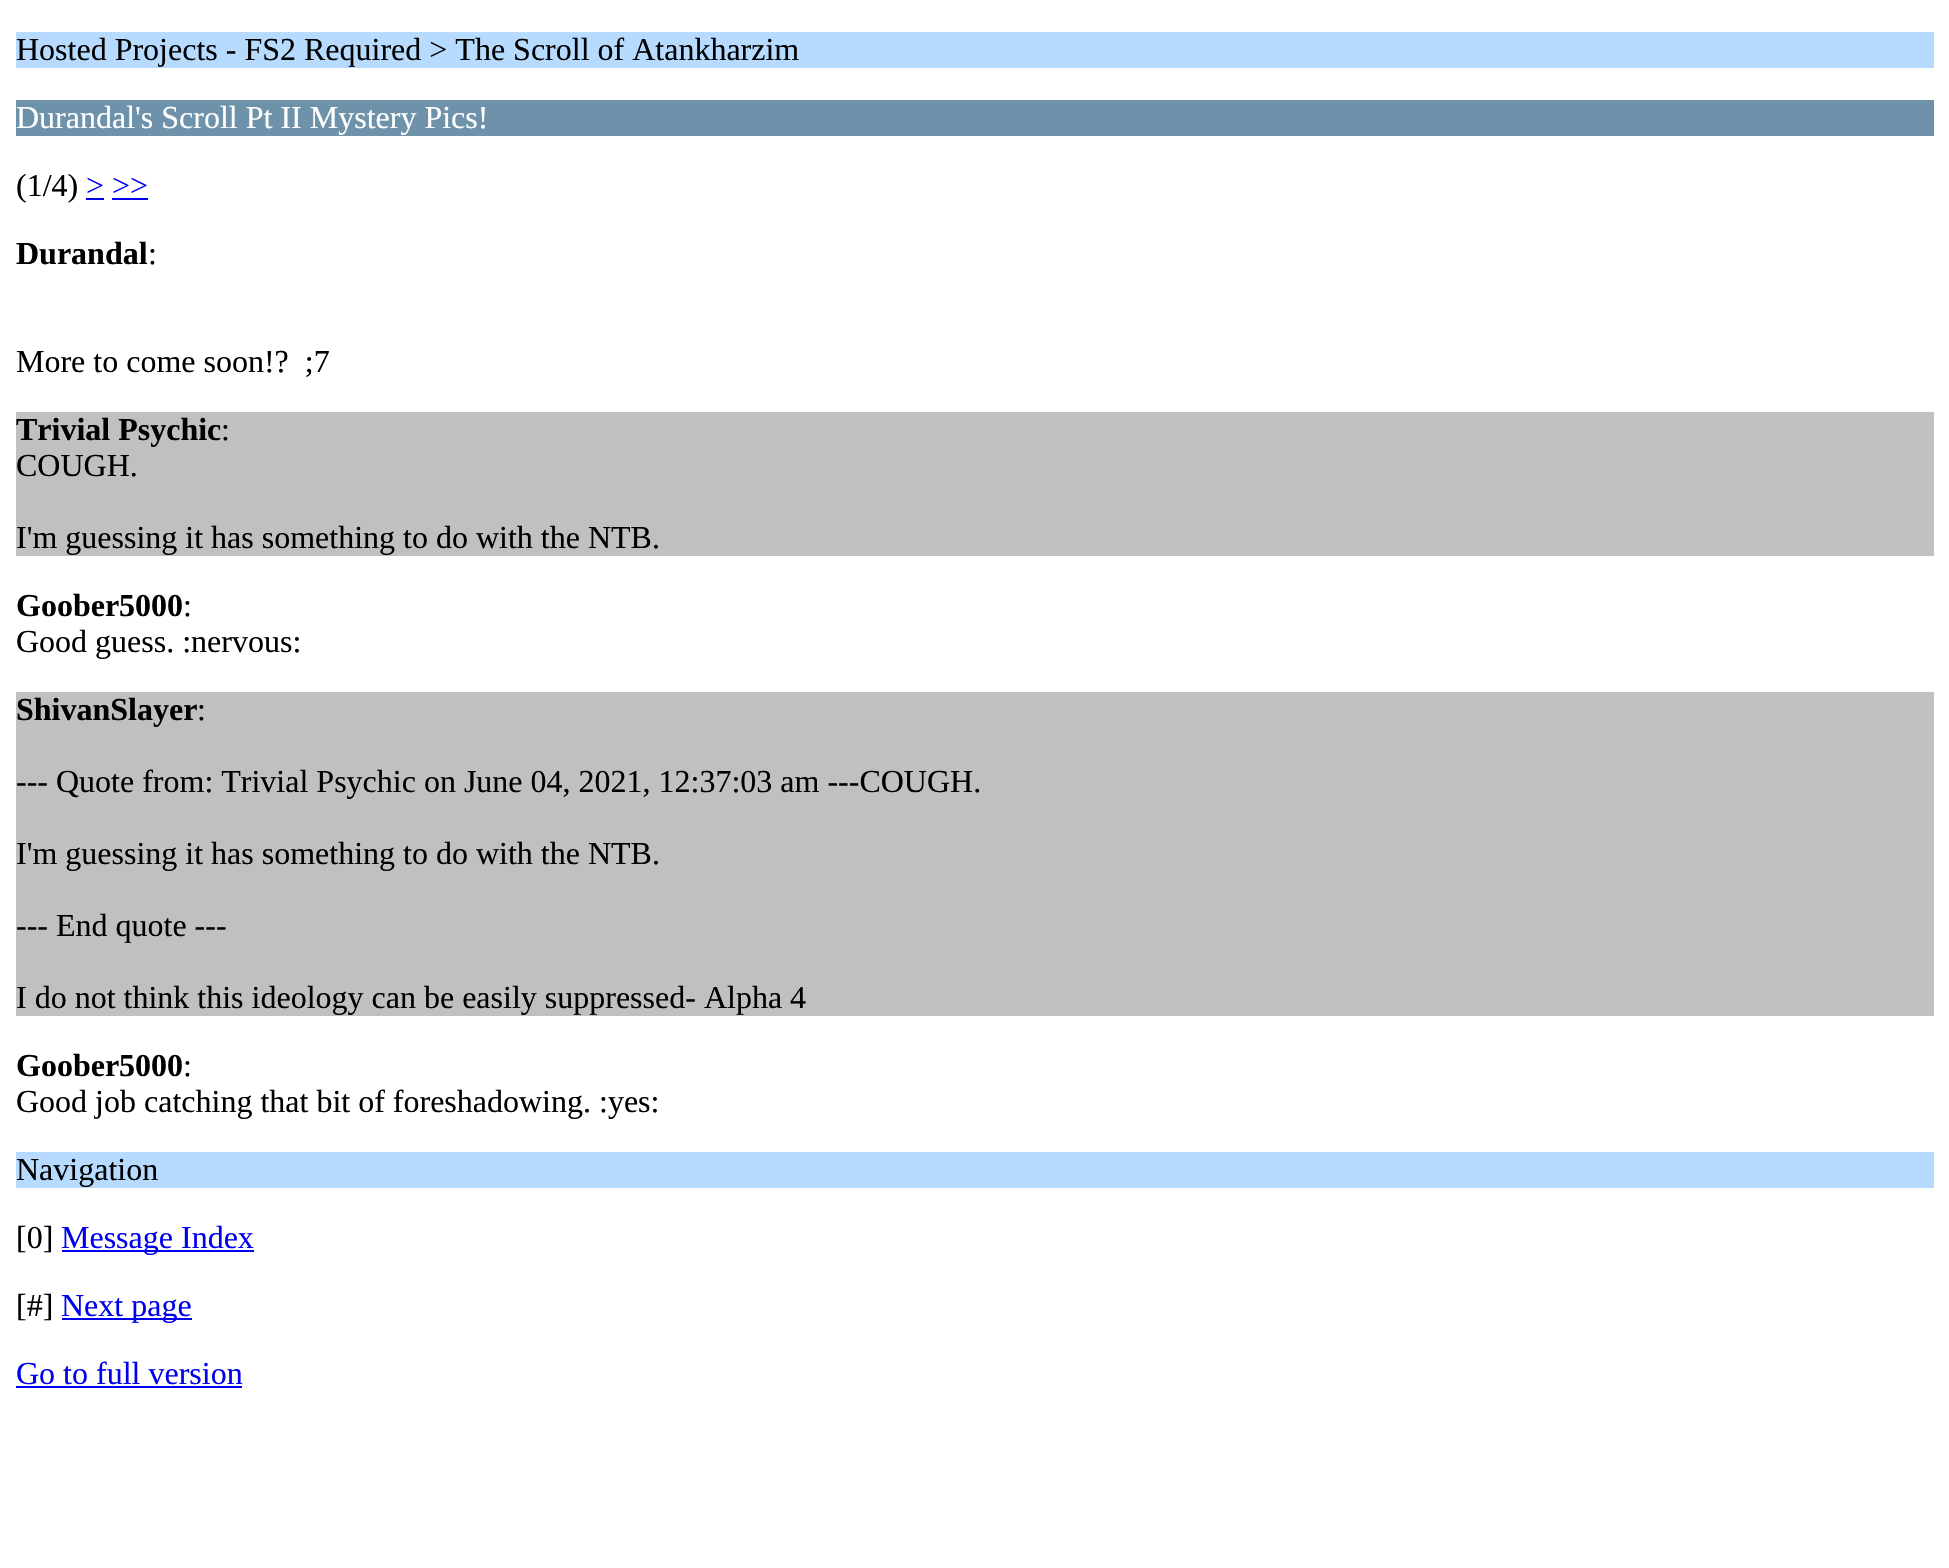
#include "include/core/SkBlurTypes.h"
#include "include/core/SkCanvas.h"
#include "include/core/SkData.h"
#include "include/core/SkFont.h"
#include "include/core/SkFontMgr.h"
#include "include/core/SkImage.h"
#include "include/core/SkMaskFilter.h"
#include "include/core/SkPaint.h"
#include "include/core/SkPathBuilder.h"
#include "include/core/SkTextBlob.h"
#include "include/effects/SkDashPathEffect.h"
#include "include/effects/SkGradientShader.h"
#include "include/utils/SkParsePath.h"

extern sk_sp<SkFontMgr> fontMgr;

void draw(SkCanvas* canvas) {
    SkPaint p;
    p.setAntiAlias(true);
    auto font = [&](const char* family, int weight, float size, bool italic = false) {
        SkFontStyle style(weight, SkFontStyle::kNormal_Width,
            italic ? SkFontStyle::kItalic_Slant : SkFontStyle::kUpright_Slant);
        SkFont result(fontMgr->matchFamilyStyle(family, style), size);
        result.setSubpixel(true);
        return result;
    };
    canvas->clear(0xFFFFFFFF);
    p.setColor(0xFFB6DBFF);
    canvas->drawRect(SkRect::MakeLTRB(16, 32, 1934, 68), p);
    auto font1 = font("Liberation Serif", 400, 32);
    p.setColor(0xFF000000);
    canvas->drawString("Hosted Projects - FS2 Required > The Scroll of Atankharzim", 16, 60, font1, p);
    p.setColor(0xFF6D92AA);
    canvas->drawRect(SkRect::MakeLTRB(16, 100, 1934, 136), p);
    p.setColor(0xFFFFFFFF);
    canvas->drawString("Durandal's Scroll Pt II Mystery Pics!", 16, 128, font1, p);
    p.setColor(0xFF000000);
    canvas->drawString("(1/4)", 16, 196, font1, p);
    p.setColor(0xFF0000EE);
    canvas->drawString("> >>", 86, 196, font1, p);
    canvas->drawRect(SkRect::MakeLTRB(86, 198, 104, 200), p);
    canvas->drawRect(SkRect::MakeLTRB(112, 198, 148, 200), p);
    auto font2 = font("Liberation Serif", 700, 32);
    p.setColor(0xFF000000);
    canvas->drawString("Durandal", 16, 264, font2, p);
    canvas->drawString(":", 148, 264, font1, p);
    canvas->drawString("More to come soon!?  ;7", 16, 372, font1, p);
    p.setColor(0xFFC0C0C0);
    canvas->drawRect(SkRect::MakeLTRB(16, 412, 1934, 556), p);
    p.setColor(0xFF000000);
    canvas->drawString("Trivial Psychic", 16, 440, font2, p);
    {
        const struct { const char* s; float x, y; } items[] = {
            {":", 221, 440},
            {"COUGH.", 16, 476},
            {"I'm guessing it has something to do with the NTB.", 16, 548},
        };
        for (auto [s, x, y] : items) {
            canvas->drawString(s, x, y, font1, p);
        }
    }
    canvas->drawString("Goober5000", 16, 616, font2, p);
    canvas->drawString(":", 183, 616, font1, p);
    canvas->drawString("Good guess. :nervous:", 16, 652, font1, p);
    p.setColor(0xFFC0C0C0);
    canvas->drawRect(SkRect::MakeLTRB(16, 692, 1934, 1016), p);
    p.setColor(0xFF000000);
    canvas->drawString("ShivanSlayer", 16, 720, font2, p);
    {
        const struct { const char* s; float x, y; } items[] = {
            {":", 197, 720},
            {"--- Quote from: Trivial Psychic on June 04, 2021, 12:37:03 am ---COUGH.", 16, 792},
            {"I'm guessing it has something to do with the NTB.", 16, 864},
            {"--- End quote ---", 16, 936},
            {"I do not think this ideology can be easily suppressed- Alpha 4", 16, 1008},
        };
        for (auto [s, x, y] : items) {
            canvas->drawString(s, x, y, font1, p);
        }
    }
    canvas->drawString("Goober5000", 16, 1076, font2, p);
    canvas->drawString(":", 183, 1076, font1, p);
    canvas->drawString("Good job catching that bit of foreshadowing. :yes:", 16, 1112, font1, p);
    p.setColor(0xFFB6DBFF);
    canvas->drawRect(SkRect::MakeLTRB(16, 1152, 1934, 1188), p);
    p.setColor(0xFF000000);
    canvas->drawString("Navigation", 16, 1180, font1, p);
    canvas->drawString("[0]", 16, 1248, font1, p);
    p.setColor(0xFF0000EE);
    canvas->drawRect(SkRect::MakeLTRB(62, 1250, 254, 1252), p);
    canvas->drawString("Message Index", 61, 1248, font1, p);
    p.setColor(0xFF000000);
    canvas->drawString("[#]", 16, 1316, font1, p);
    p.setColor(0xFF0000EE);
    canvas->drawRect(SkRect::MakeLTRB(62, 1318, 192, 1320), p);
    canvas->drawString("Next page", 61, 1316, font1, p);
    canvas->drawString("Go to full version", 16, 1384, font1, p);
    canvas->drawRect(SkRect::MakeLTRB(16, 1386, 242, 1388), p);
}
